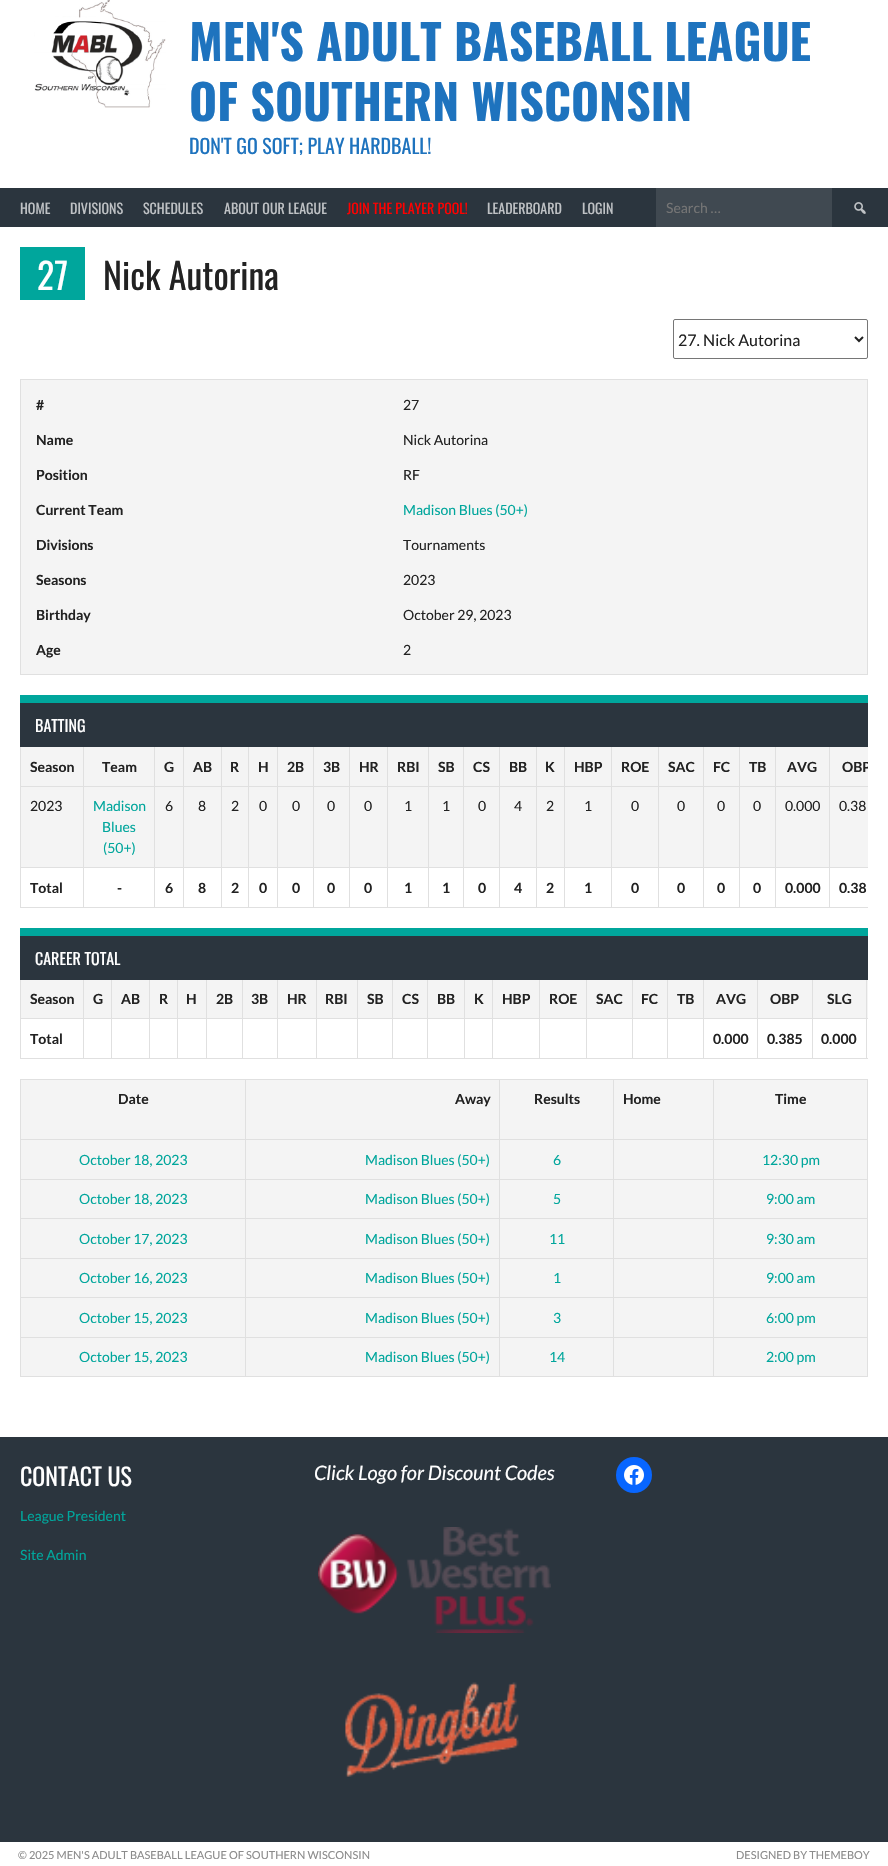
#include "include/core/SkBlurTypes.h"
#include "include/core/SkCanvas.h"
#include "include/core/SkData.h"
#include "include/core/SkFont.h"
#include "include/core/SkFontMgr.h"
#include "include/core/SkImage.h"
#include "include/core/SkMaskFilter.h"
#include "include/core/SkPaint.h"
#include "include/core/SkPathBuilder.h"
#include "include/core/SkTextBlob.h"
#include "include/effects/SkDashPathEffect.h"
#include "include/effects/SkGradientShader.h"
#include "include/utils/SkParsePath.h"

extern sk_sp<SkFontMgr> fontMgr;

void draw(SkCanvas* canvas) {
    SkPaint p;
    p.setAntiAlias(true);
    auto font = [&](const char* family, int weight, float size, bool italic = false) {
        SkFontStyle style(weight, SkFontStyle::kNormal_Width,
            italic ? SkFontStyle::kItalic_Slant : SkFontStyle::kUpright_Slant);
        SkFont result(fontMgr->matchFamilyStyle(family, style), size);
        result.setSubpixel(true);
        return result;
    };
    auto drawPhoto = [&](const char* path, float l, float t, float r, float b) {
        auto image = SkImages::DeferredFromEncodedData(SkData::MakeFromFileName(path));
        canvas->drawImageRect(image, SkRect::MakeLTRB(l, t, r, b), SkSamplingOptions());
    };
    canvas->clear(0xFFFFFFFF);
    drawPhoto("media/1.png", 34, 0, 166, 108);
    auto font1 = font("Oswald", 700, 48);
    p.setColor(0xFF1E73BE);
    canvas->drawString("MEN'S ADULT BASEBALL LEAGUE", 189, 61, font1, p);
    canvas->drawString("OF SOUTHERN WISCONSIN", 189, 121, font1, p);
    auto font2 = font("Oswald", 400, 20);
    canvas->drawString("DON'T GO SOFT; PLAY HARDBALL!", 189, 154, font2, p);
    p.setColor(0xFF2B353E);
    canvas->drawRect(SkRect::MakeLTRB(0, 188, 888, 227), p);
    auto font3 = font("Oswald", 400, 14);
    p.setColor(0xFFBFC2C5);
    {
        const struct { const char* s; float x, y; } items[] = {
            {"HOME", 20, 214},
            {"DIVISIONS", 70, 214},
            {"SCHEDULES", 143, 214},
            {"ABOUT OUR LEAGUE", 224, 214},
        };
        for (auto [s, x, y] : items) {
            canvas->drawString(s, x, y, font3, p);
        }
    }
    p.setColor(0xFFFF0000);
    canvas->drawString("JOIN THE PLAYER POOL!", 347, 214, font3, p);
    p.setColor(0xFFBFC2C5);
    canvas->drawString("LEADERBOARD", 487, 214, font3, p);
    canvas->drawString("LOGIN", 582, 214, font3, p);
    p.setColor(0xFF404951);
    canvas->drawRect(SkRect::MakeLTRB(656, 188, 832, 227), p);
    auto font4 = font("Lato", 400, 14);
    p.setColor(0xFF757575);
    canvas->drawString("Search …", 666, 213, font4, p);
    drawPhoto("media/2.png", 854, 202, 866, 214);
    p.setColor(0xFF00A69C);
    canvas->drawRect(SkRect::MakeLTRB(20, 247, 85, 300), p);
    auto font5 = font("Oswald", 400, 36);
    p.setColor(0xFFFFFFFF);
    canvas->drawString("27", 37, 290, font5, p);
    p.setColor(0xFF222222);
    canvas->drawString("Nick Autorina", 103, 290, font5, p);
    p.setStyle(SkPaint::kStroke_Style);
    p.setStrokeWidth(1);
    p.setColor(0xFF767676);
    canvas->drawRoundRect(SkRect::MakeLTRB(673.5f, 319.5f, 867.5f, 358.5f), 1.5f, 1.5f, p);
    p.setStrokeWidth(2);
    p.setColor(0xFF222222);
    canvas->drawPath(SkPathBuilder().moveTo(855, 337).lineTo(859, 341).lineTo(863, 337).detach(), p);
    auto font6 = font("Lato", 400, 16);
    p.setStyle(SkPaint::kFill_Style);
    canvas->drawString("27. Nick Autorina", 678, 346, font6, p);
    p.setColor(0xFFF4F4F4);
    canvas->drawRect(SkRect::MakeLTRB(20.5f, 379.5f, 867.5f, 674.5f), p);
    p.setStyle(SkPaint::kStroke_Style);
    p.setStrokeWidth(1);
    p.setColor(0xFFE0E0E0);
    canvas->drawRect(SkRect::MakeLTRB(20.5f, 379.5f, 867.5f, 674.5f), p);
    auto font7 = font("Lato", 700, 14);
    p.setStyle(SkPaint::kFill_Style);
    p.setColor(0xFF222222);
    canvas->drawString("#", 36, 410, font7, p);
    canvas->drawString("27", 403, 410, font4, p);
    canvas->drawString("Name", 36, 445, font7, p);
    canvas->drawString("Nick Autorina", 403, 445, font4, p);
    canvas->drawString("Position", 36, 480, font7, p);
    canvas->drawString("RF", 403, 480, font4, p);
    canvas->drawString("Current Team", 36, 515, font7, p);
    p.setColor(0xFF00A69C);
    canvas->drawString("Madison Blues (50+)", 403, 515, font4, p);
    p.setColor(0xFF222222);
    canvas->drawString("Divisions", 36, 550, font7, p);
    canvas->drawString("Tournaments", 403, 550, font4, p);
    canvas->drawString("Seasons", 36, 585, font7, p);
    canvas->drawString("2023", 403, 585, font4, p);
    canvas->drawString("Birthday", 36, 620, font7, p);
    canvas->drawString("October 29, 2023", 403, 620, font4, p);
    canvas->drawString("Age", 36, 655, font7, p);
    canvas->drawString("2", 403, 655, font4, p);
    {
        const struct { float l, t, r, b; SkColor color; } items[] = {
            {20, 907, 868, 908, 0xFFE0E0E0},
            {20, 746, 21, 908, 0xFFE0E0E0},
            {21, 747, 868, 867, 0xFFF4F4F4},
            {829, 786, 868, 787, 0xFFE0E0E0},
            {829, 867, 868, 868, 0xFFE0E0E0},
            {829, 867, 830, 908, 0xFFE0E0E0},
            {775, 867, 830, 868, 0xFFE0E0E0},
            {829, 786, 830, 868, 0xFFE0E0E0},
            {775, 786, 830, 787, 0xFFE0E0E0},
            {775, 867, 776, 908, 0xFFE0E0E0},
            {739, 867, 776, 868, 0xFFE0E0E0},
            {775, 786, 776, 868, 0xFFE0E0E0},
            {739, 786, 776, 787, 0xFFE0E0E0},
            {739, 867, 740, 908, 0xFFE0E0E0},
            {703, 867, 740, 868, 0xFFE0E0E0},
            {739, 786, 740, 868, 0xFFE0E0E0},
            {703, 786, 740, 787, 0xFFE0E0E0},
            {703, 867, 704, 908, 0xFFE0E0E0},
            {658, 867, 704, 868, 0xFFE0E0E0},
            {703, 786, 704, 868, 0xFFE0E0E0},
            {658, 786, 704, 787, 0xFFE0E0E0},
            {658, 867, 659, 908, 0xFFE0E0E0},
            {611, 867, 659, 868, 0xFFE0E0E0},
            {658, 786, 659, 868, 0xFFE0E0E0},
            {611, 786, 659, 787, 0xFFE0E0E0},
            {611, 867, 612, 908, 0xFFE0E0E0},
            {564, 867, 612, 868, 0xFFE0E0E0},
            {611, 786, 612, 868, 0xFFE0E0E0},
            {564, 786, 612, 787, 0xFFE0E0E0},
            {564, 867, 565, 908, 0xFFE0E0E0},
            {536, 867, 565, 868, 0xFFE0E0E0},
            {564, 786, 565, 868, 0xFFE0E0E0},
            {536, 786, 565, 787, 0xFFE0E0E0},
            {536, 867, 537, 908, 0xFFE0E0E0},
            {499, 867, 537, 868, 0xFFE0E0E0},
            {536, 786, 537, 868, 0xFFE0E0E0},
            {499, 786, 537, 787, 0xFFE0E0E0},
            {499, 867, 500, 908, 0xFFE0E0E0},
            {463, 867, 500, 868, 0xFFE0E0E0},
            {499, 786, 500, 868, 0xFFE0E0E0},
            {463, 786, 500, 787, 0xFFE0E0E0},
            {463, 867, 464, 908, 0xFFE0E0E0},
            {428, 867, 464, 868, 0xFFE0E0E0},
            {463, 786, 464, 868, 0xFFE0E0E0},
            {428, 786, 464, 787, 0xFFE0E0E0},
            {428, 867, 429, 908, 0xFFE0E0E0},
            {387, 867, 429, 868, 0xFFE0E0E0},
            {428, 786, 429, 868, 0xFFE0E0E0},
            {387, 786, 429, 787, 0xFFE0E0E0},
            {387, 867, 388, 908, 0xFFE0E0E0},
            {349, 867, 388, 868, 0xFFE0E0E0},
            {387, 786, 388, 868, 0xFFE0E0E0},
            {349, 786, 388, 787, 0xFFE0E0E0},
            {349, 867, 350, 908, 0xFFE0E0E0},
            {313, 867, 350, 868, 0xFFE0E0E0},
            {349, 786, 350, 868, 0xFFE0E0E0},
            {313, 786, 350, 787, 0xFFE0E0E0},
            {313, 867, 314, 908, 0xFFE0E0E0},
            {277, 867, 314, 868, 0xFFE0E0E0},
            {313, 786, 314, 868, 0xFFE0E0E0},
            {277, 786, 314, 787, 0xFFE0E0E0},
            {277, 867, 278, 908, 0xFFE0E0E0},
            {248, 867, 278, 868, 0xFFE0E0E0},
            {277, 786, 278, 868, 0xFFE0E0E0},
            {248, 786, 278, 787, 0xFFE0E0E0},
            {248, 867, 249, 908, 0xFFE0E0E0},
            {221, 867, 249, 868, 0xFFE0E0E0},
            {248, 786, 249, 868, 0xFFE0E0E0},
            {221, 786, 249, 787, 0xFFE0E0E0},
            {221, 867, 222, 908, 0xFFE0E0E0},
            {183, 867, 222, 868, 0xFFE0E0E0},
            {221, 786, 222, 868, 0xFFE0E0E0},
            {183, 786, 222, 787, 0xFFE0E0E0},
            {183, 867, 184, 908, 0xFFE0E0E0},
            {154, 867, 184, 868, 0xFFE0E0E0},
            {183, 786, 184, 868, 0xFFE0E0E0},
            {154, 786, 184, 787, 0xFFE0E0E0},
            {154, 867, 155, 908, 0xFFE0E0E0},
            {83, 867, 155, 868, 0xFFE0E0E0},
            {154, 786, 155, 868, 0xFFE0E0E0},
            {83, 786, 155, 787, 0xFFE0E0E0},
            {83, 867, 84, 908, 0xFFE0E0E0},
            {20, 867, 84, 868, 0xFFE0E0E0},
            {83, 786, 84, 868, 0xFFE0E0E0},
            {20, 786, 84, 787, 0xFFE0E0E0},
            {83, 746, 84, 787, 0xFFE0E0E0},
            {154, 746, 155, 787, 0xFFE0E0E0},
            {183, 746, 184, 787, 0xFFE0E0E0},
            {221, 746, 222, 787, 0xFFE0E0E0},
            {248, 746, 249, 787, 0xFFE0E0E0},
            {277, 746, 278, 787, 0xFFE0E0E0},
            {313, 746, 314, 787, 0xFFE0E0E0},
            {349, 746, 350, 787, 0xFFE0E0E0},
            {387, 746, 388, 787, 0xFFE0E0E0},
            {428, 746, 429, 787, 0xFFE0E0E0},
            {463, 746, 464, 787, 0xFFE0E0E0},
            {499, 746, 500, 787, 0xFFE0E0E0},
            {536, 746, 537, 787, 0xFFE0E0E0},
            {564, 746, 565, 787, 0xFFE0E0E0},
            {611, 746, 612, 787, 0xFFE0E0E0},
            {658, 746, 659, 787, 0xFFE0E0E0},
            {703, 746, 704, 787, 0xFFE0E0E0},
            {739, 746, 740, 787, 0xFFE0E0E0},
            {775, 746, 776, 787, 0xFFE0E0E0},
            {829, 746, 830, 787, 0xFFE0E0E0},
            {20, 703, 868, 747, 0xFF2B353E},
            {20, 695, 868, 703, 0xFF00A69C},
        };
        for (auto [l, t, r, b, color] : items) {
            p.setColor(color);
            canvas->drawRect(SkRect::MakeLTRB(l, t, r, b), p);
        }
    }
    auto font8 = font("Oswald", 400, 16);
    p.setColor(0xFFFFFFFF);
    canvas->drawString("BATTING", 35, 732, font8, p);
    p.setColor(0xFF222222);
    {
        const struct { const char* s; float x, y; } items[] = {
            {"Season", 30, 772},
            {"Team", 102, 772},
            {"G", 164, 772},
            {"AB", 193, 772},
            {"R", 230, 772},
            {"H", 258, 772},
            {"2B", 287, 772},
            {"3B", 323, 772},
            {"HR", 359, 772},
            {"RBI", 397, 772},
            {"SB", 438, 772},
            {"CS", 473, 772},
            {"BB", 509, 772},
            {"K", 545, 772},
            {"HBP", 574, 772},
            {"ROE", 621, 772},
            {"SAC", 668, 772},
            {"FC", 713, 772},
            {"TB", 749, 772},
            {"AVG", 787, 772},
        };
        for (auto [s, x, y] : items) {
            canvas->drawString(s, x, y, font7, p);
        }
    }
    canvas->save();
    canvas->clipRect(SkRect::MakeLTRB(20, 746, 868, 908));
    canvas->drawString("OBP", 842, 772, font7, p);
    canvas->restore();
    canvas->drawString("2023", 30, 811, font4, p);
    p.setColor(0xFF00A69C);
    {
        const struct { const char* s; float x, y; } items[] = {
            {"Madison", 93, 811},
            {"Blues", 102, 832},
            {"(50+)", 103, 853},
        };
        for (auto [s, x, y] : items) {
            canvas->drawString(s, x, y, font4, p);
        }
    }
    p.setColor(0xFF222222);
    {
        const struct { const char* s; float x, y; } items[] = {
            {"6", 165, 811},
            {"8", 198, 811},
            {"2", 231, 811},
            {"0", 259, 811},
            {"0", 292, 811},
            {"0", 327, 811},
            {"0", 364, 811},
            {"1", 404, 811},
            {"1", 442, 811},
            {"0", 478, 811},
            {"4", 514, 811},
            {"2", 546, 811},
            {"1", 584, 811},
            {"0", 631, 811},
            {"0", 677, 811},
            {"0", 717, 811},
            {"0", 753, 811},
            {"0.000", 785, 811},
            {"0.38", 839, 811},
        };
        for (auto [s, x, y] : items) {
            canvas->drawString(s, x, y, font4, p);
        }
    }
    {
        const struct { const char* s; float x, y; } items[] = {
            {"Total", 30, 893},
            {"-", 117, 893},
            {"6", 165, 893},
            {"8", 198, 893},
            {"2", 231, 893},
            {"0", 259, 893},
            {"0", 292, 893},
            {"0", 327, 893},
            {"0", 364, 893},
            {"1", 404, 893},
            {"1", 442, 893},
            {"0", 478, 893},
            {"4", 514, 893},
            {"2", 546, 893},
            {"1", 584, 893},
            {"0", 631, 893},
            {"0", 677, 893},
            {"0", 717, 893},
            {"0", 753, 893},
            {"0.000", 785, 893},
            {"0.38", 839, 893},
        };
        for (auto [s, x, y] : items) {
            canvas->drawString(s, x, y, font7, p);
        }
    }
    {
        const struct { float l, t, r, b; SkColor color; } items[] = {
            {20, 1058, 868, 1059, 0xFFE0E0E0},
            {20, 979, 21, 1059, 0xFFE0E0E0},
            {21, 980, 868, 1018, 0xFFF4F4F4},
            {866, 1018, 868, 1019, 0xFFE0E0E0},
            {866, 1018, 867, 1059, 0xFFE0E0E0},
            {812, 1018, 867, 1019, 0xFFE0E0E0},
            {812, 1018, 813, 1059, 0xFFE0E0E0},
            {757, 1018, 813, 1019, 0xFFE0E0E0},
            {757, 1018, 758, 1059, 0xFFE0E0E0},
            {703, 1018, 758, 1019, 0xFFE0E0E0},
            {703, 1018, 704, 1059, 0xFFE0E0E0},
            {667, 1018, 704, 1019, 0xFFE0E0E0},
            {667, 1018, 668, 1059, 0xFFE0E0E0},
            {632, 1018, 668, 1019, 0xFFE0E0E0},
            {632, 1018, 633, 1059, 0xFFE0E0E0},
            {586, 1018, 633, 1019, 0xFFE0E0E0},
            {586, 1018, 587, 1059, 0xFFE0E0E0},
            {539, 1018, 587, 1019, 0xFFE0E0E0},
            {539, 1018, 540, 1059, 0xFFE0E0E0},
            {492, 1018, 540, 1019, 0xFFE0E0E0},
            {492, 1018, 493, 1059, 0xFFE0E0E0},
            {464, 1018, 493, 1019, 0xFFE0E0E0},
            {464, 1018, 465, 1059, 0xFFE0E0E0},
            {427, 1018, 465, 1019, 0xFFE0E0E0},
            {427, 1018, 428, 1059, 0xFFE0E0E0},
            {392, 1018, 428, 1019, 0xFFE0E0E0},
            {392, 1018, 393, 1059, 0xFFE0E0E0},
            {357, 1018, 393, 1019, 0xFFE0E0E0},
            {357, 1018, 358, 1059, 0xFFE0E0E0},
            {316, 1018, 358, 1019, 0xFFE0E0E0},
            {316, 1018, 317, 1059, 0xFFE0E0E0},
            {277, 1018, 317, 1019, 0xFFE0E0E0},
            {277, 1018, 278, 1059, 0xFFE0E0E0},
            {242, 1018, 278, 1019, 0xFFE0E0E0},
            {242, 1018, 243, 1059, 0xFFE0E0E0},
            {206, 1018, 243, 1019, 0xFFE0E0E0},
            {206, 1018, 207, 1059, 0xFFE0E0E0},
            {177, 1018, 207, 1019, 0xFFE0E0E0},
            {177, 1018, 178, 1059, 0xFFE0E0E0},
            {149, 1018, 178, 1019, 0xFFE0E0E0},
            {149, 1018, 150, 1059, 0xFFE0E0E0},
            {111, 1018, 150, 1019, 0xFFE0E0E0},
            {111, 1018, 112, 1059, 0xFFE0E0E0},
            {83, 1018, 112, 1019, 0xFFE0E0E0},
            {83, 1018, 84, 1059, 0xFFE0E0E0},
            {20, 1018, 84, 1019, 0xFFE0E0E0},
            {83, 979, 84, 1019, 0xFFE0E0E0},
            {111, 979, 112, 1019, 0xFFE0E0E0},
            {149, 979, 150, 1019, 0xFFE0E0E0},
            {177, 979, 178, 1019, 0xFFE0E0E0},
            {206, 979, 207, 1019, 0xFFE0E0E0},
            {242, 979, 243, 1019, 0xFFE0E0E0},
            {277, 979, 278, 1019, 0xFFE0E0E0},
            {316, 979, 317, 1019, 0xFFE0E0E0},
            {357, 979, 358, 1019, 0xFFE0E0E0},
            {392, 979, 393, 1019, 0xFFE0E0E0},
            {427, 979, 428, 1019, 0xFFE0E0E0},
            {464, 979, 465, 1019, 0xFFE0E0E0},
            {492, 979, 493, 1019, 0xFFE0E0E0},
            {539, 979, 540, 1019, 0xFFE0E0E0},
            {586, 979, 587, 1019, 0xFFE0E0E0},
            {632, 979, 633, 1019, 0xFFE0E0E0},
            {667, 979, 668, 1019, 0xFFE0E0E0},
            {703, 979, 704, 1019, 0xFFE0E0E0},
            {757, 979, 758, 1019, 0xFFE0E0E0},
            {812, 979, 813, 1019, 0xFFE0E0E0},
            {866, 979, 867, 1019, 0xFFE0E0E0},
            {20, 936, 868, 980, 0xFF2B353E},
            {20, 928, 868, 936, 0xFF00A69C},
        };
        for (auto [l, t, r, b, color] : items) {
            p.setColor(color);
            canvas->drawRect(SkRect::MakeLTRB(l, t, r, b), p);
        }
    }
    p.setColor(0xFFFFFFFF);
    canvas->drawString("CAREER TOTAL", 35, 965, font8, p);
    p.setColor(0xFF222222);
    {
        const struct { const char* s; float x, y; } items[] = {
            {"Season", 30, 1004},
            {"G", 93, 1004},
            {"AB", 121, 1004},
            {"R", 159, 1004},
            {"H", 186, 1004},
            {"2B", 216, 1004},
            {"3B", 251, 1004},
            {"HR", 287, 1004},
            {"RBI", 325, 1004},
            {"SB", 367, 1004},
            {"CS", 402, 1004},
            {"BB", 437, 1004},
            {"K", 474, 1004},
            {"HBP", 502, 1004},
            {"ROE", 549, 1004},
            {"SAC", 596, 1004},
            {"FC", 641, 1004},
            {"TB", 677, 1004},
            {"AVG", 716, 1004},
            {"OBP", 770, 1004},
            {"SLG", 827, 1004},
            {"Total", 30, 1044},
            {"0.000", 713, 1044},
            {"0.385", 767, 1044},
            {"0.000", 821, 1044},
        };
        for (auto [s, x, y] : items) {
            canvas->drawString(s, x, y, font7, p);
        }
    }
    {
        const struct { float l, t, r, b; SkColor color; } items[] = {
            {21, 1080, 867, 1376, 0xFFF4F4F4},
            {20, 1079, 868, 1080, 0xFFE0E0E0},
            {867, 1079, 868, 1377, 0xFFE0E0E0},
            {20, 1376, 868, 1377, 0xFFE0E0E0},
            {20, 1079, 21, 1377, 0xFFE0E0E0},
            {713, 1139, 868, 1140, 0xFFE0E0E0},
            {713, 1179, 868, 1180, 0xFFE0E0E0},
            {713, 1218, 868, 1219, 0xFFE0E0E0},
            {713, 1258, 868, 1259, 0xFFE0E0E0},
            {713, 1297, 868, 1298, 0xFFE0E0E0},
            {713, 1337, 868, 1338, 0xFFE0E0E0},
            {713, 1337, 714, 1377, 0xFFE0E0E0},
            {613, 1337, 714, 1338, 0xFFE0E0E0},
            {713, 1297, 714, 1338, 0xFFE0E0E0},
            {613, 1297, 714, 1298, 0xFFE0E0E0},
            {713, 1258, 714, 1298, 0xFFE0E0E0},
            {613, 1258, 714, 1259, 0xFFE0E0E0},
            {713, 1218, 714, 1259, 0xFFE0E0E0},
            {613, 1218, 714, 1219, 0xFFE0E0E0},
            {713, 1179, 714, 1219, 0xFFE0E0E0},
            {613, 1179, 714, 1180, 0xFFE0E0E0},
            {713, 1139, 714, 1180, 0xFFE0E0E0},
            {613, 1139, 714, 1140, 0xFFE0E0E0},
            {613, 1337, 614, 1377, 0xFFE0E0E0},
            {499, 1337, 614, 1338, 0xFFE0E0E0},
            {613, 1297, 614, 1338, 0xFFE0E0E0},
            {499, 1297, 614, 1298, 0xFFE0E0E0},
            {613, 1258, 614, 1298, 0xFFE0E0E0},
            {499, 1258, 614, 1259, 0xFFE0E0E0},
            {613, 1218, 614, 1259, 0xFFE0E0E0},
            {499, 1218, 614, 1219, 0xFFE0E0E0},
            {613, 1179, 614, 1219, 0xFFE0E0E0},
            {499, 1179, 614, 1180, 0xFFE0E0E0},
            {613, 1139, 614, 1180, 0xFFE0E0E0},
            {499, 1139, 614, 1140, 0xFFE0E0E0},
            {499, 1337, 500, 1377, 0xFFE0E0E0},
            {245, 1337, 500, 1338, 0xFFE0E0E0},
            {499, 1297, 500, 1338, 0xFFE0E0E0},
            {245, 1297, 500, 1298, 0xFFE0E0E0},
            {499, 1258, 500, 1298, 0xFFE0E0E0},
            {245, 1258, 500, 1259, 0xFFE0E0E0},
            {499, 1218, 500, 1259, 0xFFE0E0E0},
            {245, 1218, 500, 1219, 0xFFE0E0E0},
            {499, 1179, 500, 1219, 0xFFE0E0E0},
            {245, 1179, 500, 1180, 0xFFE0E0E0},
            {499, 1139, 500, 1180, 0xFFE0E0E0},
            {245, 1139, 500, 1140, 0xFFE0E0E0},
            {245, 1337, 246, 1377, 0xFFE0E0E0},
            {20, 1337, 246, 1338, 0xFFE0E0E0},
            {245, 1297, 246, 1338, 0xFFE0E0E0},
            {20, 1297, 246, 1298, 0xFFE0E0E0},
            {245, 1258, 246, 1298, 0xFFE0E0E0},
            {20, 1258, 246, 1259, 0xFFE0E0E0},
            {245, 1218, 246, 1259, 0xFFE0E0E0},
            {20, 1218, 246, 1219, 0xFFE0E0E0},
            {245, 1179, 246, 1219, 0xFFE0E0E0},
            {20, 1179, 246, 1180, 0xFFE0E0E0},
            {245, 1139, 246, 1180, 0xFFE0E0E0},
            {20, 1139, 246, 1140, 0xFFE0E0E0},
            {245, 1079, 246, 1140, 0xFFE0E0E0},
        };
        for (auto [l, t, r, b, color] : items) {
            p.setColor(color);
            canvas->drawRect(SkRect::MakeLTRB(l, t, r, b), p);
        }
    }
    p.setColor(0xFF222222);
    canvas->drawString("Date", 118, 1104, font7, p);
    canvas->drawString("Away", 455, 1104, font7, p);
    p.setColor(0xFFE0E0E0);
    canvas->drawRect(SkRect::MakeLTRB(613, 1079, 614, 1140), p);
    canvas->drawRect(SkRect::MakeLTRB(499, 1079, 500, 1140), p);
    p.setColor(0xFF222222);
    canvas->drawString("Results", 534, 1104, font7, p);
    canvas->drawString("Home", 623, 1104, font7, p);
    p.setColor(0xFFE0E0E0);
    canvas->drawRect(SkRect::MakeLTRB(713, 1079, 714, 1140), p);
    p.setColor(0xFF222222);
    canvas->drawString("Time", 775, 1104, font7, p);
    p.setColor(0xFF00A69C);
    {
        const struct { const char* s; float x, y; } items[] = {
            {"October 18, 2023", 79, 1165},
            {"Madison Blues (50+)", 365, 1165},
            {"6", 553, 1165},
            {"12:30 pm", 762, 1165},
            {"October 18, 2023", 79, 1204},
            {"Madison Blues (50+)", 365, 1204},
            {"5", 553, 1204},
            {"9:00 am", 766, 1204},
            {"October 17, 2023", 79, 1244},
            {"Madison Blues (50+)", 365, 1244},
            {"11", 549, 1244},
            {"9:30 am", 766, 1244},
            {"October 16, 2023", 79, 1283},
            {"Madison Blues (50+)", 365, 1283},
            {"1", 553, 1283},
            {"9:00 am", 766, 1283},
            {"October 15, 2023", 79, 1323},
            {"Madison Blues (50+)", 365, 1323},
            {"3", 553, 1323},
            {"6:00 pm", 766, 1323},
            {"October 15, 2023", 79, 1362},
            {"Madison Blues (50+)", 365, 1362},
            {"14", 549, 1362},
            {"2:00 pm", 766, 1362},
        };
        for (auto [s, x, y] : items) {
            canvas->drawString(s, x, y, font4, p);
        }
    }
    p.setColor(0xFF2B353E);
    canvas->drawRect(SkRect::MakeLTRB(0, 1437, 888, 1842), p);
    auto font9 = font("Oswald", 400, 24);
    p.setColor(0xFFFFFFFF);
    canvas->drawString("CONTACT US", 20, 1486, font9, p);
    p.setColor(0xFF00A69C);
    canvas->drawString("League President", 20, 1521, font4, p);
    canvas->drawString("Site Admin", 20, 1560, font4, p);
    auto font10 = font("Lato", 400, 20, true);
    p.setColor(0xFFFFFFFF);
    canvas->drawString("Click Logo for Discount Codes", 314, 1480, font10, p);
    drawPhoto("media/3.png", 318, 1527, 551, 1633);
    drawPhoto("media/4.png", 345, 1682, 519, 1777);
    p.setColor(0xFF0866FF);
    canvas->drawCircle(634, 1475, 18, p);
    drawPhoto("media/5.png", 624, 1465, 644, 1485);
    auto font11 = font("Lato", 400, 11);
    p.setColor(0xFF8B8B8B);
    canvas->drawString("© 2025 MEN'S ADULT BASEBALL LEAGUE OF SOUTHERN WISCONSIN", 18, 1859, font11, p);
    canvas->drawString("DESIGNED BY THEMEBOY", 736, 1859, font11, p);
}
